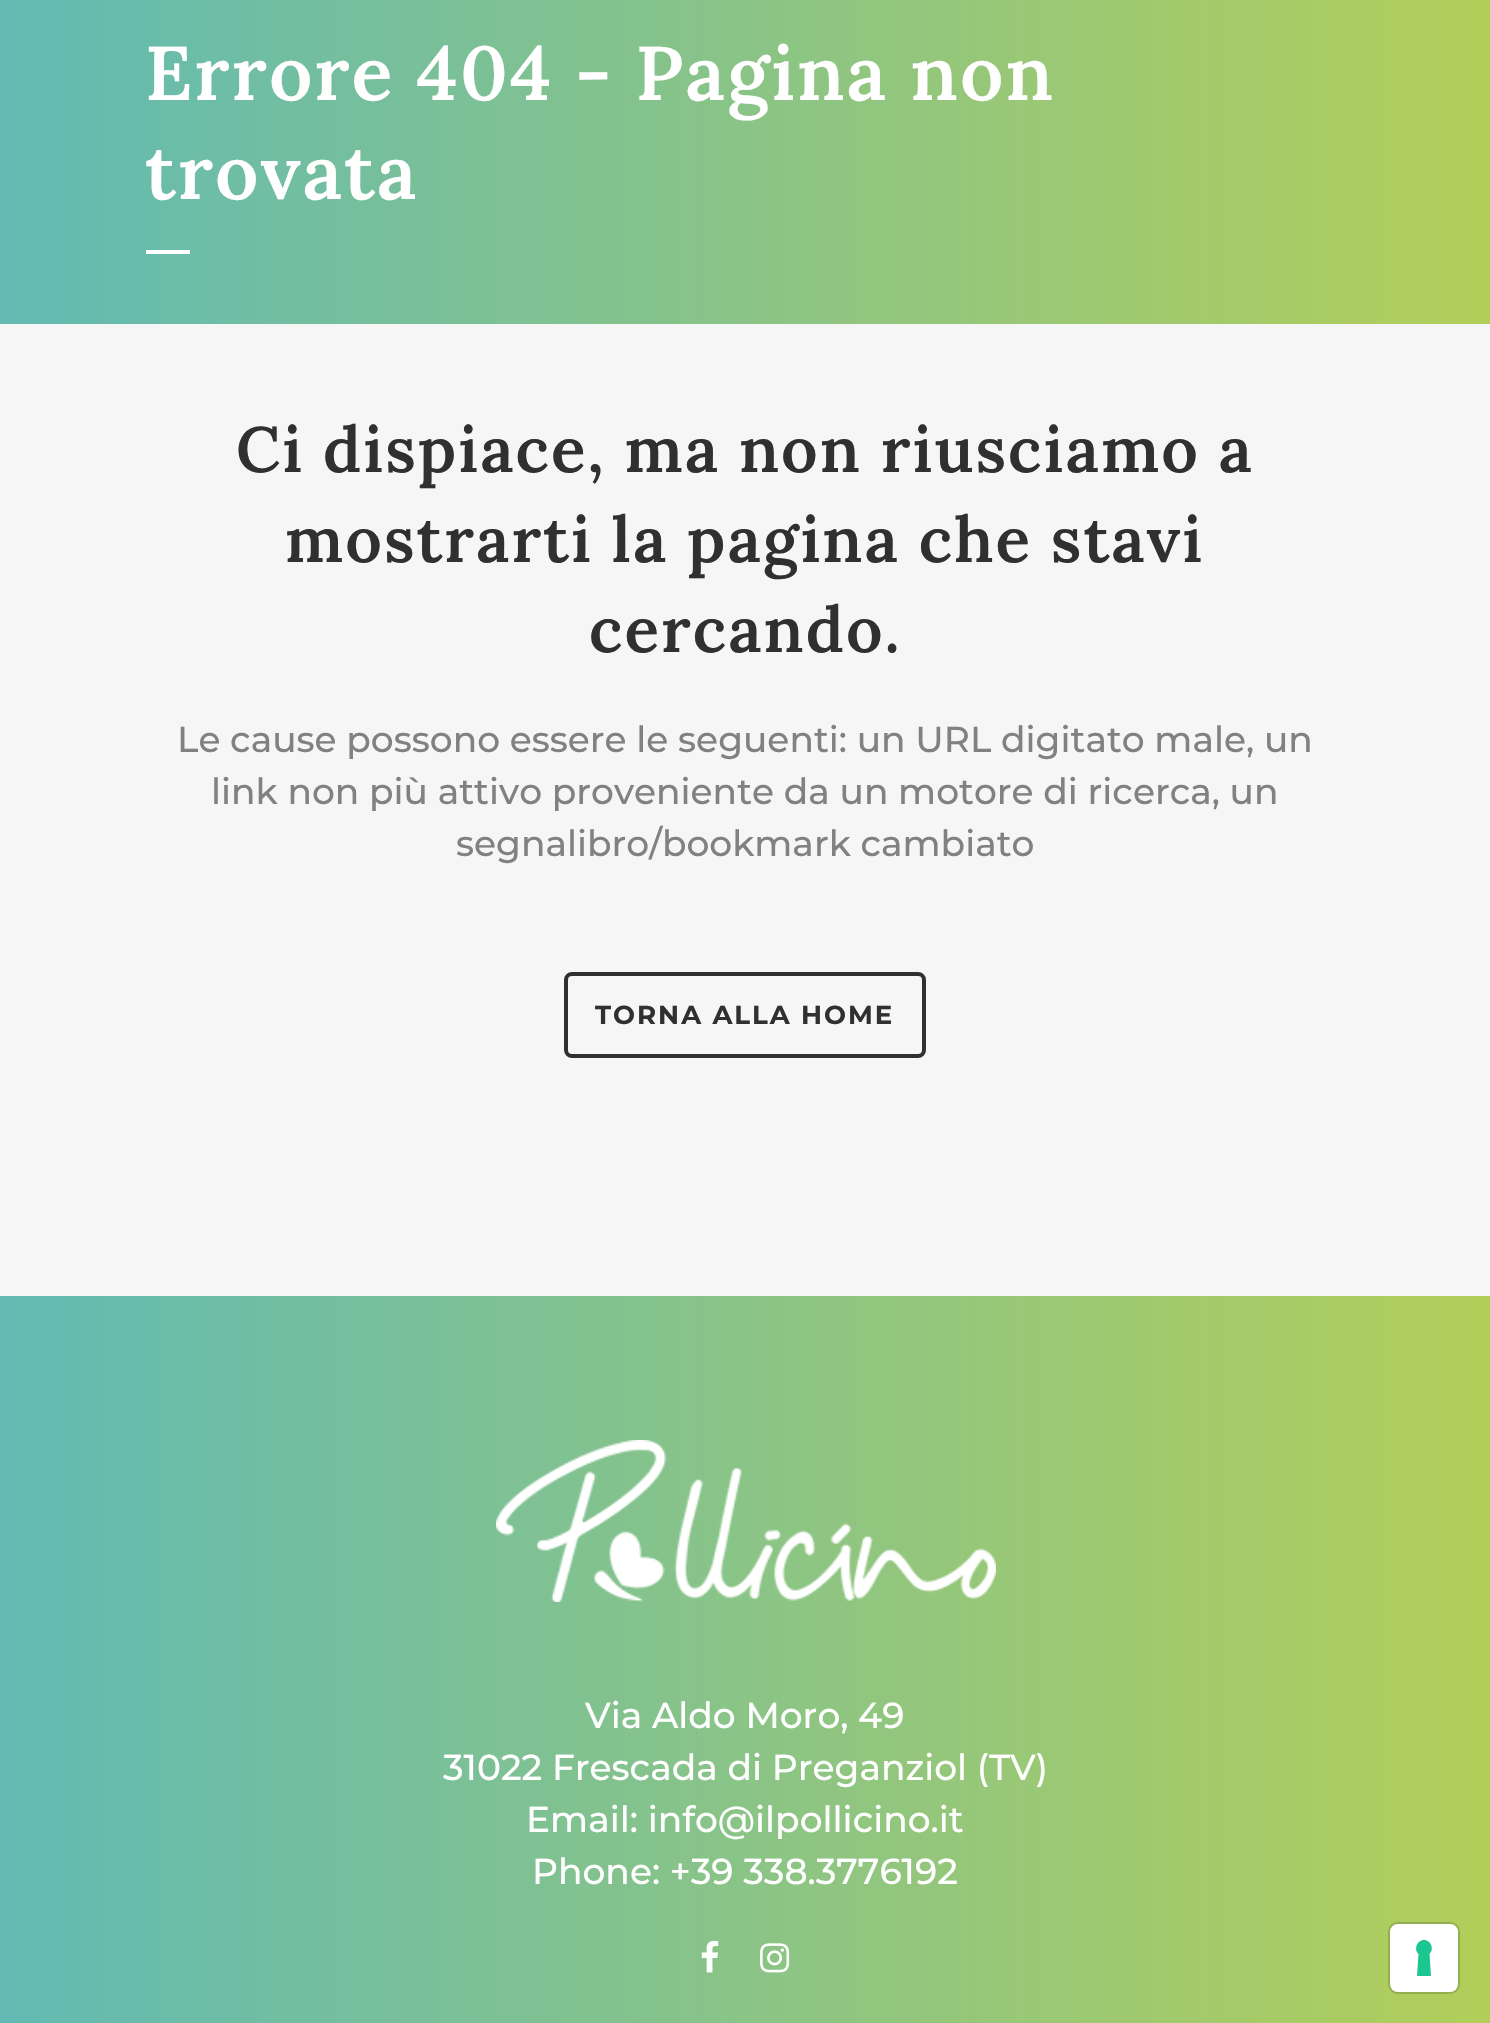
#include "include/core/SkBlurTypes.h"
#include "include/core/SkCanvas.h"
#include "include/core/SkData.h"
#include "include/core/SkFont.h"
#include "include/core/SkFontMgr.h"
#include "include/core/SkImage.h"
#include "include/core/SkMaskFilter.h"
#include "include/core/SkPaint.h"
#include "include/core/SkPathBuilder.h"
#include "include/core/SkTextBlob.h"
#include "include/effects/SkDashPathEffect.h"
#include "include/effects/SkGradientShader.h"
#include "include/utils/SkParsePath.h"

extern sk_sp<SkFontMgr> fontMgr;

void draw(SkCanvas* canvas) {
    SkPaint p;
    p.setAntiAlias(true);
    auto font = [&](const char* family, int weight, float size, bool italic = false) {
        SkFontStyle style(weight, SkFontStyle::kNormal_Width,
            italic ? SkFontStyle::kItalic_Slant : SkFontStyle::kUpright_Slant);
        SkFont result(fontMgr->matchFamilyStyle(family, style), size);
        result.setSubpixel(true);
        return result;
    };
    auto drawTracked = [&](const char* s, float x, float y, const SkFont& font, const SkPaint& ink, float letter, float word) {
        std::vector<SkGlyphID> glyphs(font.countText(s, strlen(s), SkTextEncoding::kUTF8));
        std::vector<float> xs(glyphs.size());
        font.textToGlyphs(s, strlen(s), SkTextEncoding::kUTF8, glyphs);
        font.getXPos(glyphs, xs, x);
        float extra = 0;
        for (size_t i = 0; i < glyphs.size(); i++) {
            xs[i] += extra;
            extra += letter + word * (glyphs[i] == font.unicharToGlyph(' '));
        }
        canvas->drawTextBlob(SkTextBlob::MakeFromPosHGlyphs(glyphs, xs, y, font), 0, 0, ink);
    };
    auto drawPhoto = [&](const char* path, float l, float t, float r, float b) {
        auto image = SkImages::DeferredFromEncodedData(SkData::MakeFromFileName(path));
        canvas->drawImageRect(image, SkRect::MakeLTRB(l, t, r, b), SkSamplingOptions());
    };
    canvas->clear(0xFFF6F6F6);
    {
        const SkColor colors[] = {0xFF62BAB3, 0xFFB2CE5A};
        const float stops[] = {0, 1};
        const SkPoint ends[] = {{0, 149}, {1490, 149}};
        p.setShader(SkGradientShader::MakeLinear(ends, colors, stops, 2, SkTileMode::kClamp));
        p.setAlpha(255);
    }
    canvas->drawRect(SkRect::MakeLTRB(0, 0, 1490, 324), p);
    auto font1 = font("Lora", 600, 76);
    p.setShader(nullptr);
    p.setColor(0xFFFFFFFF);
    drawTracked("Errore 404 - Pagina non", 145, 100, font1, p, 2, 0);
    drawTracked("trovata", 145, 199, font1, p, 2, 0);
    canvas->drawRect(SkRect::MakeLTRB(146, 250, 190, 254), p);
    auto font2 = font("Lora", 600, 64);
    p.setColor(0xFF303030);
    {
        const struct { const char* s; float x, y; } items[] = {
            {"Ci dispiace, ma non riusciamo a", 236, 472},
            {"mostrarti la pagina che stavi", 285, 562},
            {"cercando.", 589, 652},
        };
        for (auto [s, x, y] : items) {
            drawTracked(s, x, y, font2, p, 2, 0);
        }
    }
    auto font3 = font("Montserrat", 500, 36);
    p.setColor(0xFF818181);
    {
        const struct { const char* s; float x, y; } items[] = {
            {"Le cause possono essere le seguenti: un URL digitato male, un", 177, 752},
            {"link non più attivo proveniente da un motore di ricerca, un", 211, 804},
            {"segnalibro/bookmark cambiato", 456, 856},
        };
        for (auto [s, x, y] : items) {
            canvas->drawString(s, x, y, font3, p);
        }
    }
    p.setStyle(SkPaint::kStroke_Style);
    p.setStrokeWidth(4);
    p.setColor(0xFF303030);
    canvas->drawRoundRect(SkRect::MakeLTRB(566, 974, 924, 1056), 6, 6, p);
    auto font4 = font("Montserrat", 700, 26);
    p.setStyle(SkPaint::kFill_Style);
    drawTracked("TORNA ALLA HOME", 595, 1024, font4, p, 2, 0);
    {
        const SkColor colors[] = {0xFF62BAB3, 0xFFB2CE5A};
        const float stops[] = {0, 1};
        const SkPoint ends[] = {{0, 1690}, {1490, 1690}};
        p.setShader(SkGradientShader::MakeLinear(ends, colors, stops, 2, SkTileMode::kClamp));
        p.setAlpha(255);
    }
    canvas->drawRect(SkRect::MakeLTRB(0, 1296, 1490, 2023), p);
    drawPhoto("media/1.png", 496, 1440, 996, 1602);
    p.setShader(nullptr);
    p.setColor(0xFFFFFFFF);
    {
        const struct { const char* s; float x, y; } items[] = {
            {"Via Aldo Moro, 49", 585, 1728},
            {"31022 Frescada di Preganziol (TV)", 443, 1780},
            {"Email: info@ilpollicino.it", 526, 1832},
            {"Phone: +39 338.3776192", 532, 1884},
        };
        for (auto [s, x, y] : items) {
            canvas->drawString(s, x, y, font3, p);
        }
    }
    drawPhoto("media/2.png", 701, 1940, 719, 1973);
    drawPhoto("media/3.png", 760, 1943, 790, 1973);
    p.setStyle(SkPaint::kStroke_Style);
    p.setStrokeWidth(2);
    p.setColor(0x26000000);
    canvas->drawRoundRect(SkRect::MakeLTRB(1389, 1923, 1459, 1993), 9, 9, p);
    p.setStyle(SkPaint::kFill_Style);
    p.setColor(0xFFFFFFFF);
    canvas->drawRoundRect(SkRect::MakeLTRB(1390, 1924, 1458, 1992), 8, 8, p);
    p.setColor(0xFF1CC691);
    canvas->drawPath(SkPathBuilder(SkPathFillType::kEvenOdd).moveTo(1424, 1940).cubicTo(1431, 1940, 1434.5f, 1949.5f, 1429.5f, 1954).lineTo(1431, 1976).lineTo(1417, 1976).lineTo(1418.5f, 1954).cubicTo(1413.5f, 1949.5f, 1417, 1940, 1424, 1940).close().detach(), p);
}
